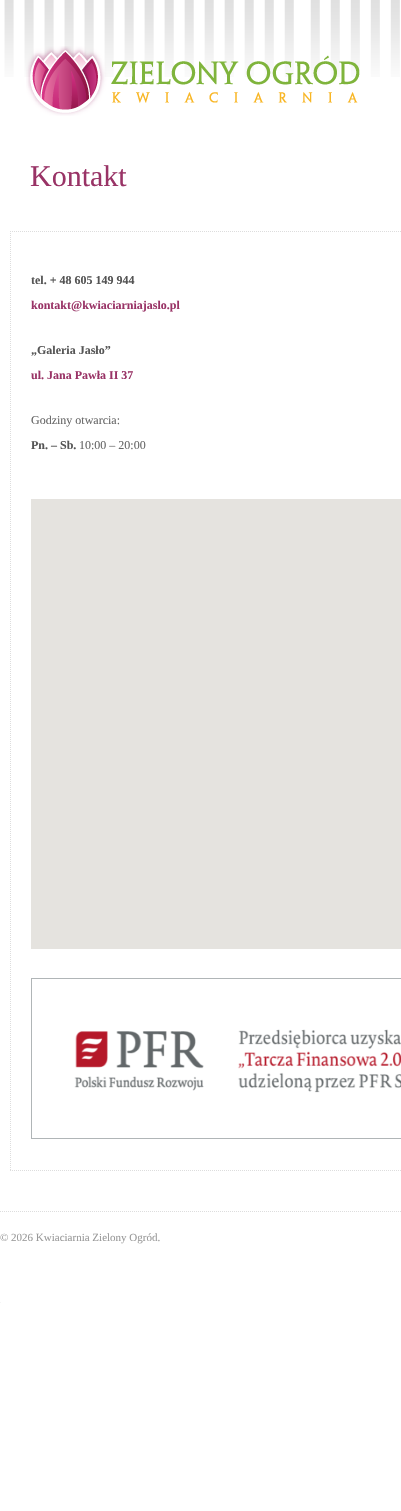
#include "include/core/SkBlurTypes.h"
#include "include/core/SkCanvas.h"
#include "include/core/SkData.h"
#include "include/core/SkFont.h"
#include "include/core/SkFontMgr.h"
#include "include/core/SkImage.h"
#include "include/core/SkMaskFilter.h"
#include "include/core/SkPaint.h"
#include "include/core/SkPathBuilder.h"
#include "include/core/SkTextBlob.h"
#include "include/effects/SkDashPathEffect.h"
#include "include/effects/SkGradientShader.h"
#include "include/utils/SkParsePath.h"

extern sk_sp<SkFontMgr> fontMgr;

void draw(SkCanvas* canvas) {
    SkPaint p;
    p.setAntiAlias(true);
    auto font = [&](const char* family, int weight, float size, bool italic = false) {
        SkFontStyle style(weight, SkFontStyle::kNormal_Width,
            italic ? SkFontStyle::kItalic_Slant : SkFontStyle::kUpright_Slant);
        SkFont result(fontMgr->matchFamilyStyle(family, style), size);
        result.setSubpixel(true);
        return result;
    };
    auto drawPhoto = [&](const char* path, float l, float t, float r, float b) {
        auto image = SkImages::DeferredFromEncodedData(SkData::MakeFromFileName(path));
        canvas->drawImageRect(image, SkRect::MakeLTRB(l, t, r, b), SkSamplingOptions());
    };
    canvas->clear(0xFFFFFFFF);
    drawPhoto("media/1.png", 4, 0, 400, 77);
    drawPhoto("media/2.png", 26, 46, 360, 116);
    auto font1 = font("Liberation Serif", 400, 30);
    p.setColor(0xFF993366);
    canvas->drawString("Kontakt", 30, 186, font1, p);
    p.setStyle(SkPaint::kStroke_Style);
    p.setStrokeWidth(1);
    p.setColor(0xFFDDDDDD);
    p.setPathEffect(SkDashPathEffect::Make({{1, 1}}, 0));
    canvas->drawPath(SkPathBuilder().moveTo(10, 231.5f).lineTo(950, 231.5f).detach(), p);
    p.setPathEffect(nullptr);
    p.setPathEffect(SkDashPathEffect::Make({{1, 1}}, 0));
    canvas->drawPath(SkPathBuilder().moveTo(10, 1170.5f).lineTo(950, 1170.5f).detach(), p);
    p.setPathEffect(nullptr);
    p.setPathEffect(SkDashPathEffect::Make({{1, 1}}, 0));
    canvas->drawPath(SkPathBuilder().moveTo(10.5f, 231).lineTo(10.5f, 1171).detach(), p);
    p.setPathEffect(nullptr);
    auto font2 = font("Liberation Serif", 700, 12);
    p.setStyle(SkPaint::kFill_Style);
    p.setColor(0xFF555555);
    canvas->drawString("tel. + 48 605 149 944", 31, 284, font2, p);
    p.setColor(0xFF993366);
    canvas->drawString("kontakt@kwiaciarniajaslo.pl", 31, 309, font2, p);
    p.setColor(0xFF555555);
    canvas->drawString("„Galeria Jasło”", 31, 354, font2, p);
    p.setColor(0xFF993366);
    canvas->drawString("ul. Jana Pawła II 37", 31, 379, font2, p);
    auto font3 = font("Liberation Serif", 400, 12);
    p.setColor(0xFF666666);
    canvas->drawString("Godziny otwarcia:", 31, 424, font3, p);
    p.setColor(0xFF555555);
    canvas->drawString("Pn. – Sb.", 31, 449, font2, p);
    p.setColor(0xFF666666);
    canvas->drawString("10:00 – 20:00", 79, 449, font3, p);
    p.setColor(0xFFE5E3DF);
    canvas->drawRect(SkRect::MakeLTRB(31, 499, 401, 949), p);
    p.setStyle(SkPaint::kStroke_Style);
    p.setColor(0xFFB0B5B7);
    canvas->drawRect(SkRect::MakeLTRB(31.5f, 978.5f, 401.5f, 1138.5f), p);
    drawPhoto("media/3.png", 74, 1029, 401, 1093);
    p.setColor(0xFFDDDDDD);
    p.setPathEffect(SkDashPathEffect::Make({{1, 1}}, 0));
    canvas->drawPath(SkPathBuilder().moveTo(0, 1211.5f).lineTo(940, 1211.5f).detach(), p);
    p.setPathEffect(nullptr);
    auto font4 = font("Liberation Serif", 400, 11);
    p.setStyle(SkPaint::kFill_Style);
    p.setColor(0xFF999999);
    canvas->drawString("© 2026 Kwiaciarnia Zielony Ogród.", 0, 1241, font4, p);
    p.setColor(0xFFF5F5F5);
    canvas->drawRect(SkRect::MakeLTRB(0, 1302, 1, 1303), p);
}
